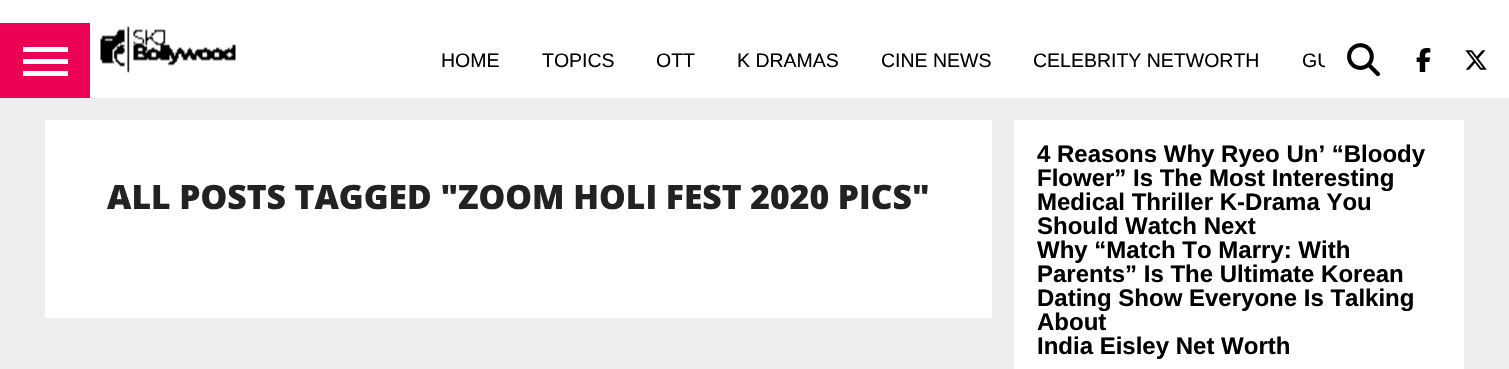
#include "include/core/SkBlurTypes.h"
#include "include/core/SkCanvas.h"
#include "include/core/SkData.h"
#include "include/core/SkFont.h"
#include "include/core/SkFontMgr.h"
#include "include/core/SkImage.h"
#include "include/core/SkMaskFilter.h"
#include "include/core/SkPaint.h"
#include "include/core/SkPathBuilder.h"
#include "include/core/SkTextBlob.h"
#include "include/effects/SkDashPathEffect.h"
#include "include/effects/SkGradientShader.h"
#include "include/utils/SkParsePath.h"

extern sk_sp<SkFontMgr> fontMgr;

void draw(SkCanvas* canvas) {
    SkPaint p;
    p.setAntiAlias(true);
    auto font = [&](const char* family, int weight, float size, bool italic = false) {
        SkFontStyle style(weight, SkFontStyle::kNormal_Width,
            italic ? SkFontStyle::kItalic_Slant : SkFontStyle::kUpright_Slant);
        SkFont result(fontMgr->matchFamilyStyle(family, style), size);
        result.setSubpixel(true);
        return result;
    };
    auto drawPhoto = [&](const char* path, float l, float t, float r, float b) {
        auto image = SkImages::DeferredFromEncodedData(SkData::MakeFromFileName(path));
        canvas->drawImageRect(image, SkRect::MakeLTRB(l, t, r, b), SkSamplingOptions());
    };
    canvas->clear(0xFFEEEEEE);
    {
        const struct { float l, t, r, b; SkColor color; } items[] = {
            {0, 0, 1509, 23, 0xFFFFFFFF},
            {90, 23, 1325, 98, 0xFFFFFFFF},
            {0, 23, 90, 98, 0xFFEB0254},
            {23, 47, 68, 52, 0xFFFFFFFF},
            {23, 59, 68, 64, 0xFFFFFFFF},
            {23, 71, 68, 76, 0xFFFFFFFF},
        };
        for (auto [l, t, r, b, color] : items) {
            p.setColor(color);
            canvas->drawRect(SkRect::MakeLTRB(l, t, r, b), p);
        }
    }
    drawPhoto("media/1.png", 100, 26, 236, 73);
    auto font1 = font("Liberation Sans", 400, 19.5f);
    p.setColor(0xFF000000);
    {
        const struct { const char* s; float x, y; } items[] = {
            {"HOME", 441, 67},
            {"TOPICS", 542, 67},
            {"OTT", 656, 67},
            {"K DRAMAS", 737, 67},
            {"CINE NEWS", 881, 67},
            {"CELEBRITY NETWORTH", 1033, 67},
            {"GU", 1302, 67},
        };
        for (auto [s, x, y] : items) {
            canvas->drawString(s, x, y, font1, p);
        }
    }
    p.setColor(0xFFFFFFFF);
    canvas->drawRect(SkRect::MakeLTRB(1325, 23, 1509, 98), p);
    drawPhoto("media/2.png", 1347, 43, 1380, 77);
    drawPhoto("media/3.png", 1416, 48, 1431, 72);
    drawPhoto("media/4.png", 1465, 50, 1487, 70);
    canvas->drawRect(SkRect::MakeLTRB(45, 120, 992, 318), p);
    auto font2 = font("Open Sans", 800, 33.6f);
    p.setColor(0xFF222222);
    canvas->drawString("ALL POSTS TAGGED \"ZOOM HOLI FEST 2020 PICS\"", 107, 209, font2, p);
    p.setColor(0xFFFFFFFF);
    canvas->drawRect(SkRect::MakeLTRB(1014, 120, 1464, 369), p);
    auto font3 = font("Liberation Sans", 700, 24);
    p.setColor(0xFF000000);
    {
        const struct { const char* s; float x, y; } items[] = {
            {"4 Reasons Why Ryeo Un’ “Bloody", 1037, 162},
            {"Flower” Is The Most Interesting", 1037, 186},
            {"Medical Thriller K-Drama You", 1037, 210},
            {"Should Watch Next", 1037, 234},
            {"Why “Match To Marry: With", 1037, 258},
            {"Parents” Is The Ultimate Korean", 1037, 282},
            {"Dating Show Everyone Is Talking", 1037, 306},
            {"About", 1037, 330},
            {"India Eisley Net Worth", 1037, 354},
        };
        for (auto [s, x, y] : items) {
            canvas->drawString(s, x, y, font3, p);
        }
    }
}
